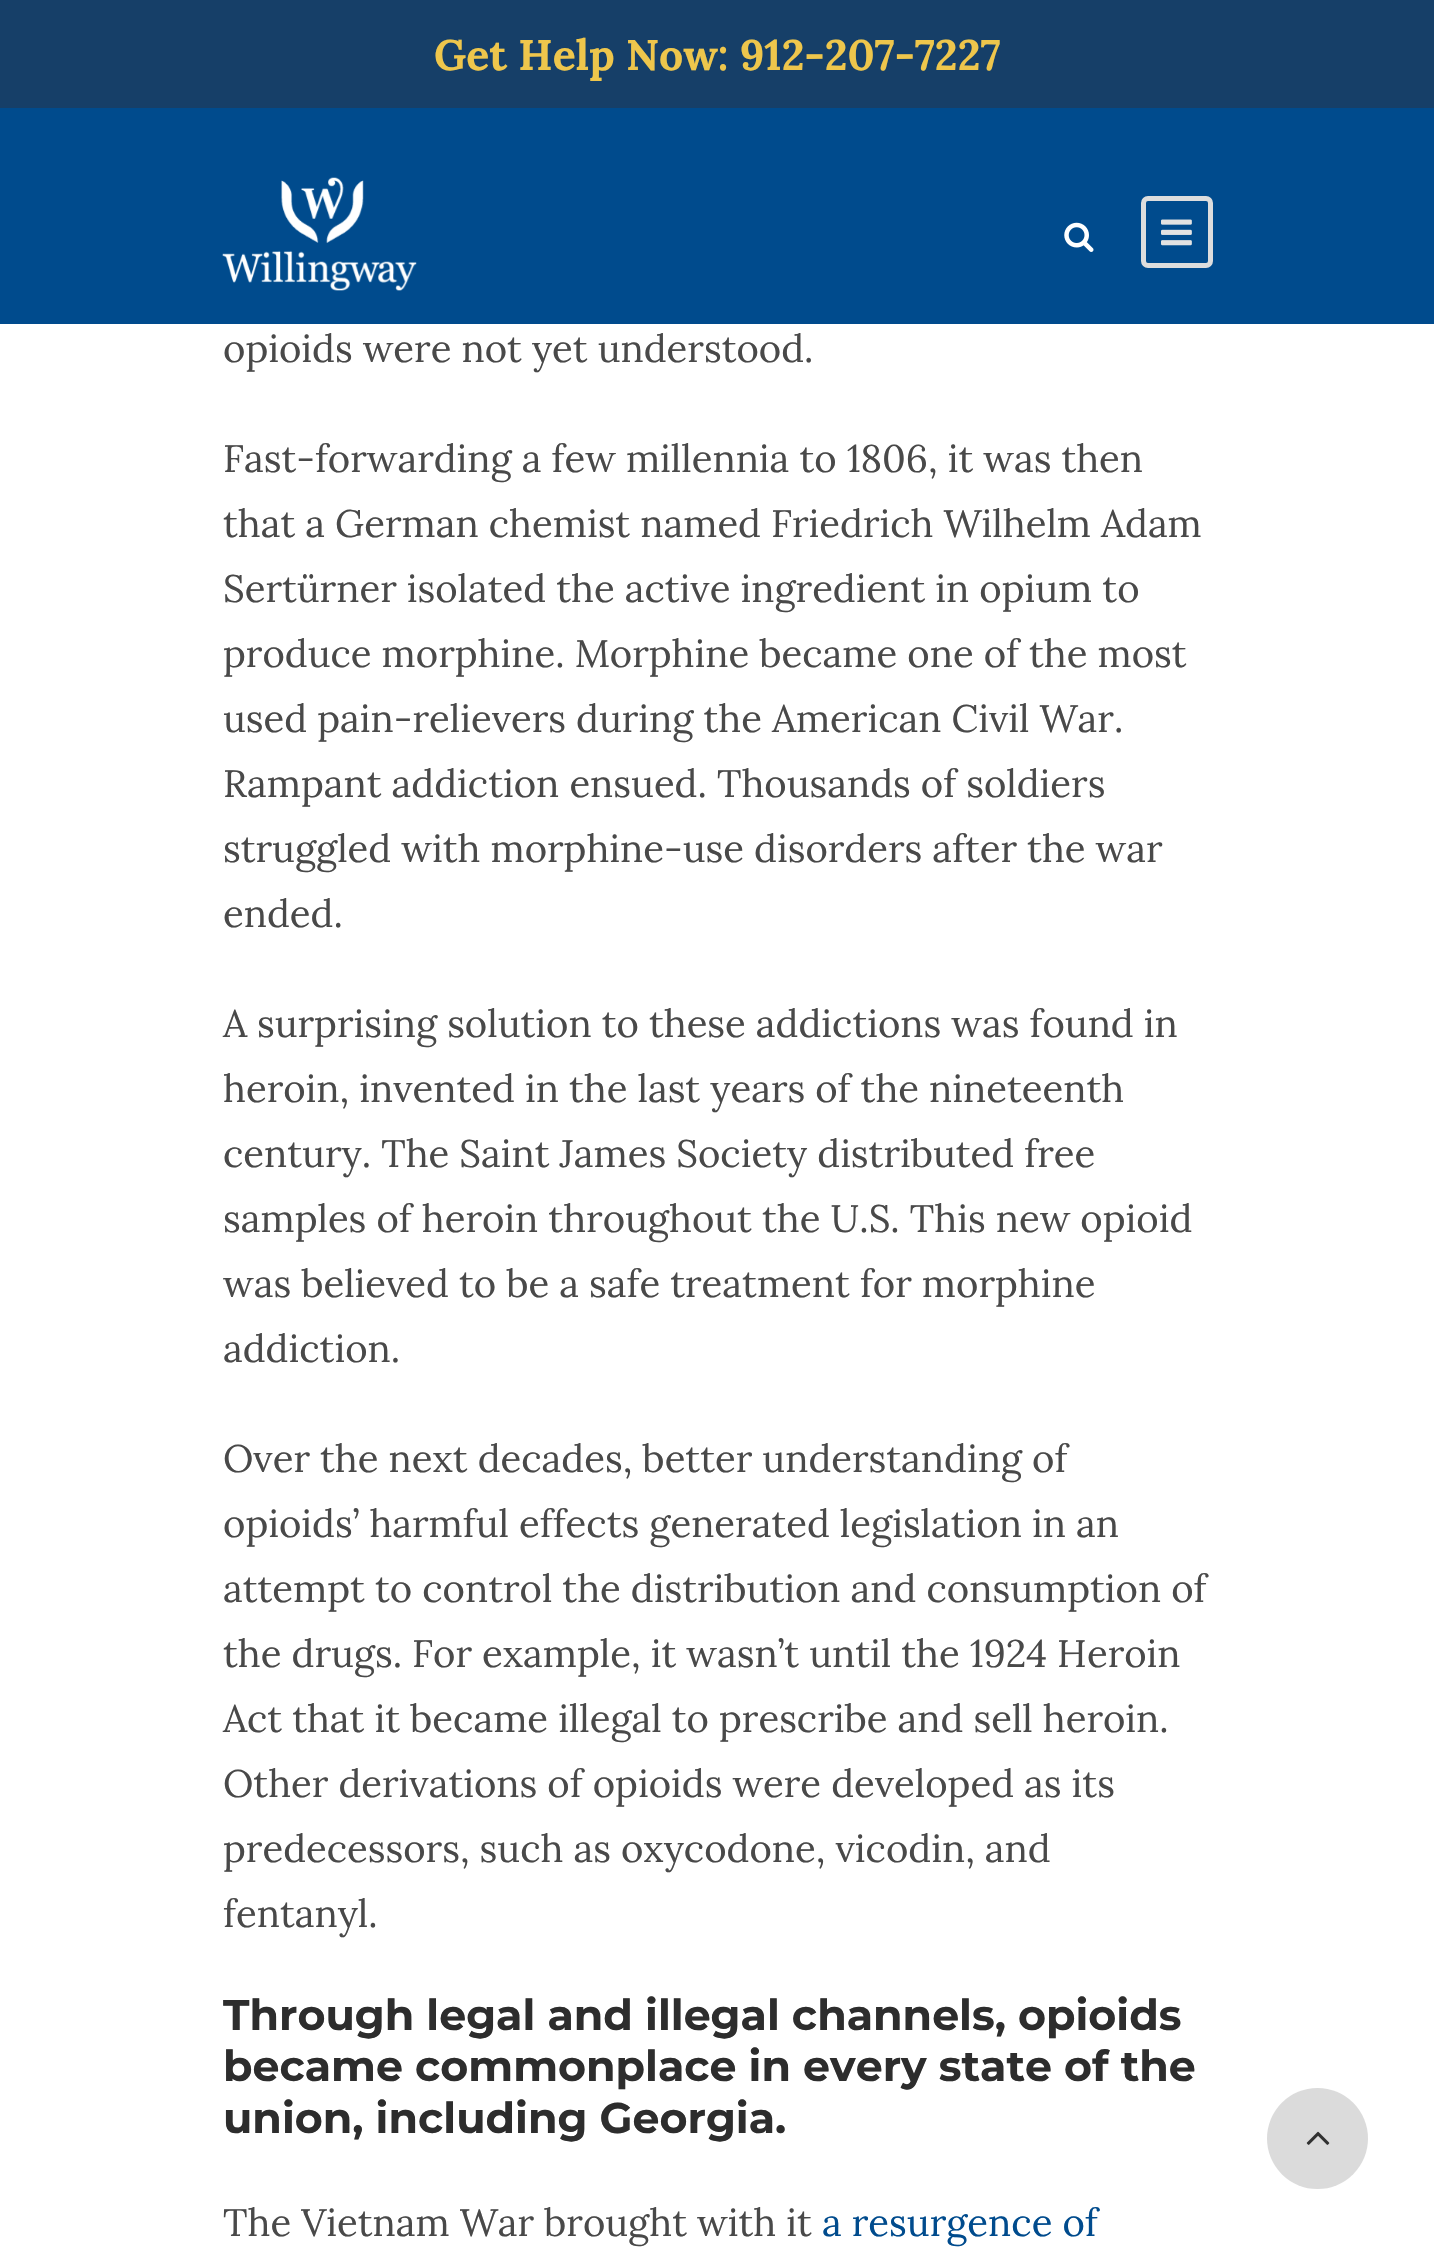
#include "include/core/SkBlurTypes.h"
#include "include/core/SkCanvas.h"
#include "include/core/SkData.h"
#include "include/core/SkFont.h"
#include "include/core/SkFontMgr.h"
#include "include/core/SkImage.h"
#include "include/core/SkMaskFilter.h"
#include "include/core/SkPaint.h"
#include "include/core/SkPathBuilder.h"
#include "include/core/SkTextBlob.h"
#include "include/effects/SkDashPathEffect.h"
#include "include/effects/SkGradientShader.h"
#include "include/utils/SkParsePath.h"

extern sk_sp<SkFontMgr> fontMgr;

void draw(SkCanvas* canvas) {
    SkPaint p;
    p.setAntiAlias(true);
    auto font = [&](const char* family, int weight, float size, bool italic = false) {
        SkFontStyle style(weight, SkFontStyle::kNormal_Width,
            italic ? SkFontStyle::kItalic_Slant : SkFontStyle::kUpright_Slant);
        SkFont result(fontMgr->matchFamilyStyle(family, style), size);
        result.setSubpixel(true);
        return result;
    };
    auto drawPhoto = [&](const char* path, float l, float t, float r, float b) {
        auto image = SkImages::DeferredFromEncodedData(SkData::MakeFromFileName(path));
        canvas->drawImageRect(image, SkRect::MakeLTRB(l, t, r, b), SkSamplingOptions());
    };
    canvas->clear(0xFFFFFFFF);
    p.setColor(0xFF163F68);
    canvas->drawRect(SkRect::MakeLTRB(0, 0, 1434, 108), p);
    auto font1 = font("Lora", 700, 42.75f);
    p.setColor(0xFFEEC64C);
    canvas->drawString("Get Help Now: 912-207-7227", 434, 70, font1, p);
    p.setColor(0xFF004B8D);
    canvas->drawRect(SkRect::MakeLTRB(0, 108, 1434, 324), p);
    drawPhoto("media/1.png", 222, 177, 417, 291);
    drawPhoto("media/2.png", 1064, 222, 1094, 252);
    p.setStyle(SkPaint::kStroke_Style);
    p.setStrokeWidth(5);
    p.setColor(0xFFDDDDDD);
    canvas->drawRoundRect(SkRect::MakeLTRB(1143.5f, 198.5f, 1210.5f, 265.5f), 4.5f, 4.5f, p);
    drawPhoto("media/3.png", 1161, 219, 1192, 246);
    auto font2 = font("Lora", 400, 38.25f);
    p.setStyle(SkPaint::kFill_Style);
    p.setColor(0xFF494949);
    {
        const struct { const char* s; float x, y; } items[] = {
            {"opioids were not yet understood.", 223, 362},
            {"Fast-forwarding a few millennia to 1806, it was then", 223, 472},
            {"that a German chemist named Friedrich Wilhelm Adam", 223, 537},
            {"Sertürner isolated the active ingredient in opium to", 223, 602},
            {"produce morphine. Morphine became one of the most", 223, 667},
            {"used pain-relievers during the American Civil War.", 223, 732},
            {"Rampant addiction ensued. Thousands of soldiers", 223, 797},
            {"struggled with morphine-use disorders after the war", 223, 862},
            {"ended.", 223, 927},
            {"A surprising solution to these addictions was found in", 223, 1037},
            {"heroin, invented in the last years of the nineteenth", 223, 1102},
            {"century. The Saint James Society distributed free", 223, 1167},
            {"samples of heroin throughout the U.S. This new opioid", 223, 1232},
            {"was believed to be a safe treatment for morphine", 223, 1297},
            {"addiction.", 223, 1362},
            {"Over the next decades, better understanding of", 223, 1472},
            {"opioids’ harmful effects generated legislation in an", 223, 1537},
            {"attempt to control the distribution and consumption of", 223, 1602},
            {"the drugs. For example, it wasn’t until the 1924 Heroin", 223, 1667},
            {"Act that it became illegal to prescribe and sell heroin.", 223, 1732},
            {"Other derivations of opioids were developed as its", 223, 1797},
            {"predecessors, such as oxycodone, vicodin, and", 223, 1862},
            {"fentanyl.", 223, 1927},
        };
        for (auto [s, x, y] : items) {
            canvas->drawString(s, x, y, font2, p);
        }
    }
    auto font3 = font("Montserrat", 700, 42.75f);
    p.setColor(0xFF2D2D2D);
    {
        const struct { const char* s; float x, y; } items[] = {
            {"Through legal and illegal channels, opioids", 223, 2030},
            {"became commonplace in every state of the", 223, 2081},
            {"union, including Georgia.", 223, 2133},
        };
        for (auto [s, x, y] : items) {
            canvas->drawString(s, x, y, font3, p);
        }
    }
    p.setColor(0xFF494949);
    canvas->drawString("The Vietnam War brought with it", 223, 2236, font2, p);
    p.setColor(0xFF004B8D);
    canvas->drawString("a resurgence of", 822, 2236, font2, p);
    p.setColor(0xFFDBDBDB);
    canvas->drawCircle(1317.5f, 2138.5f, 50.5f, p);
    drawPhoto("media/4.png", 1306, 2131, 1330, 2145);
}
